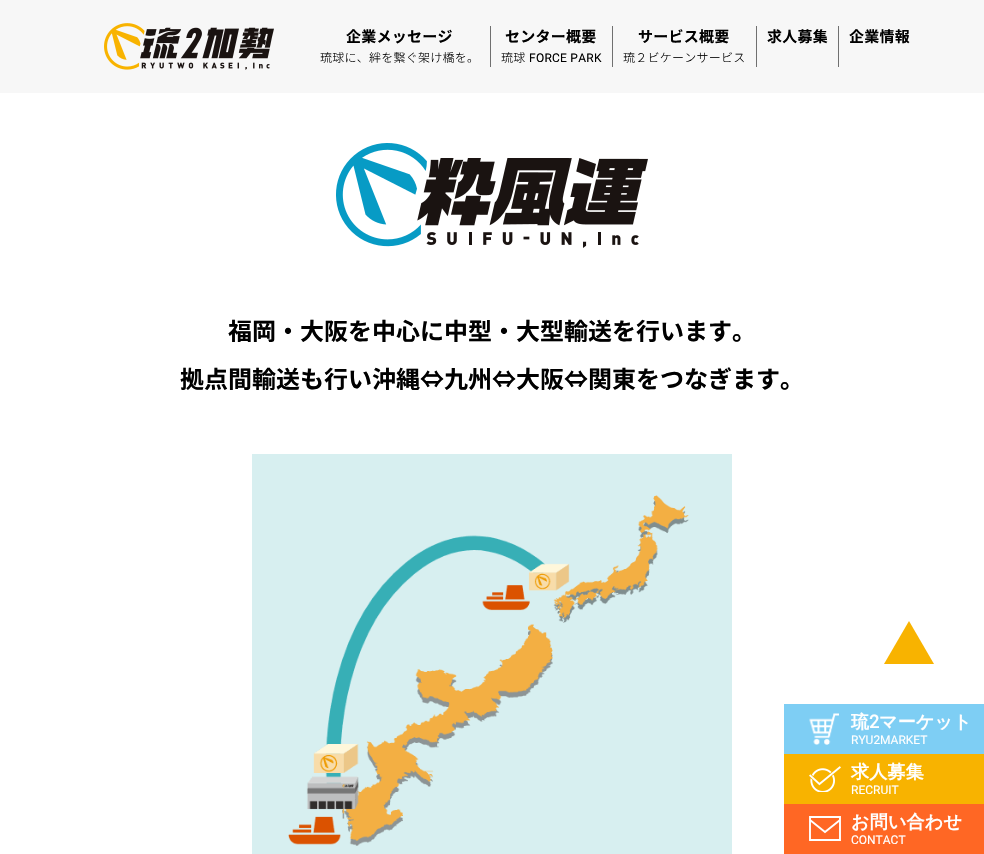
#include "include/core/SkBlurTypes.h"
#include "include/core/SkCanvas.h"
#include "include/core/SkData.h"
#include "include/core/SkFont.h"
#include "include/core/SkFontMgr.h"
#include "include/core/SkImage.h"
#include "include/core/SkMaskFilter.h"
#include "include/core/SkPaint.h"
#include "include/core/SkPathBuilder.h"
#include "include/core/SkTextBlob.h"
#include "include/effects/SkDashPathEffect.h"
#include "include/effects/SkGradientShader.h"
#include "include/utils/SkParsePath.h"

extern sk_sp<SkFontMgr> fontMgr;

void draw(SkCanvas* canvas) {
    SkPaint p;
    p.setAntiAlias(true);
    auto font = [&](const char* family, int weight, float size, bool italic = false) {
        SkFontStyle style(weight, SkFontStyle::kNormal_Width,
            italic ? SkFontStyle::kItalic_Slant : SkFontStyle::kUpright_Slant);
        SkFont result(fontMgr->matchFamilyStyle(family, style), size);
        result.setSubpixel(true);
        return result;
    };
    auto drawTracked = [&](const char* s, float x, float y, const SkFont& font, const SkPaint& ink, float letter, float word) {
        std::vector<SkGlyphID> glyphs(font.countText(s, strlen(s), SkTextEncoding::kUTF8));
        std::vector<float> xs(glyphs.size());
        font.textToGlyphs(s, strlen(s), SkTextEncoding::kUTF8, glyphs);
        font.getXPos(glyphs, xs, x);
        float extra = 0;
        for (size_t i = 0; i < glyphs.size(); i++) {
            xs[i] += extra;
            extra += letter + word * (glyphs[i] == font.unicharToGlyph(' '));
        }
        canvas->drawTextBlob(SkTextBlob::MakeFromPosHGlyphs(glyphs, xs, y, font), 0, 0, ink);
    };
    auto drawPhoto = [&](const char* path, float l, float t, float r, float b) {
        auto image = SkImages::DeferredFromEncodedData(SkData::MakeFromFileName(path));
        canvas->drawImageRect(image, SkRect::MakeLTRB(l, t, r, b), SkSamplingOptions());
    };
    canvas->clear(0xFFFFFFFF);
    p.setColor(0xFFF7F7F7);
    canvas->drawRect(SkRect::MakeLTRB(0, 0, 984, 93), p);
    drawPhoto("media/1.png", 104, 23, 274, 70);
    auto font1 = font("Noto Sans JP", 700, 15);
    p.setColor(0xFF000000);
    drawTracked("企業メッセージ", 346, 42, font1, p, 0.25f, 0);
    auto font2 = font("Noto Sans JP", 300, 12);
    drawTracked("琉球に、絆を繋ぐ架け橋を。", 320, 62, font2, p, 0.25f, 0);
    p.setColor(0xFF707070);
    canvas->drawRect(SkRect::MakeLTRB(490, 26, 491, 67), p);
    p.setColor(0xFF000000);
    drawTracked("センター概要", 505, 42, font1, p, 0.25f, 0);
    drawTracked("琉球", 501, 62, font2, p, 0.25f, 0);
    auto font3 = font("Roboto", 400, 12);
    drawTracked("FORCE PARK", 529, 62, font3, p, 0.25f, 0);
    p.setColor(0xFF707070);
    canvas->drawRect(SkRect::MakeLTRB(612, 26, 613, 67), p);
    p.setColor(0xFF000000);
    drawTracked("サービス概要", 638, 42, font1, p, 0.25f, 0);
    drawTracked("琉２ビケーンサービス", 623, 62, font2, p, 0.25f, 0);
    p.setColor(0xFF707070);
    canvas->drawRect(SkRect::MakeLTRB(756, 26, 757, 67), p);
    p.setColor(0xFF000000);
    drawTracked("求人募集", 767, 42, font1, p, 0.25f, 0);
    p.setColor(0xFF707070);
    canvas->drawRect(SkRect::MakeLTRB(838, 26, 839, 67), p);
    p.setColor(0xFF000000);
    drawTracked("企業情報", 849, 42, font1, p, 0.25f, 0);
    drawPhoto("media/2.png", 336, 143, 648, 248);
    auto font4 = font("Noto Sans JP", 700, 24);
    canvas->drawString("福岡・大阪を中心に中型・大型輸送を行います。", 228, 340, font4, p);
    canvas->drawString("拠点間輸送も行い沖縄⇔九州⇔大阪⇔関東をつなぎます。", 180, 388, font4, p);
    drawPhoto("media/3.png", 252, 454, 732, 854);
    p.setColor(0xFFF8B300);
    canvas->drawPath(SkPathBuilder().moveTo(909, 621).lineTo(884, 664).lineTo(934, 664).close().detach(), p);
    p.setColor(0xFF7ECEF4);
    canvas->drawRect(SkRect::MakeLTRB(784, 704, 984, 754), p);
    drawPhoto("media/4.png", 809, 713, 839, 745);
    auto font5 = font("WenQuanYi Zen Hei", 700, 18);
    p.setColor(0xFFFFFFFF);
    drawTracked("琉", 851, 728, font5, p, 0.25f, 0);
    auto font6 = font("Roboto", 700, 18);
    drawTracked("2", 869, 728, font6, p, 0.25f, 0);
    drawTracked("マーケット", 879, 728, font5, p, 0.25f, 0);
    canvas->drawString("RYU2MARKET", 851, 744, font3, p);
    p.setColor(0xFFF8B300);
    canvas->drawRect(SkRect::MakeLTRB(784, 754, 984, 804), p);
    drawPhoto("media/5.png", 809, 766, 841, 792);
    p.setColor(0xFFFFFFFF);
    drawTracked("求人募集", 851, 778, font5, p, 0.25f, 0);
    canvas->drawString("RECRUIT", 851, 794, font3, p);
    p.setColor(0xFFFF6724);
    canvas->drawRect(SkRect::MakeLTRB(784, 804, 984, 854), p);
    p.setStyle(SkPaint::kStroke_Style);
    p.setStrokeWidth(1.9f);
    p.setColor(0xFFFFFFFF);
    canvas->drawPath(SkPathBuilder().moveTo(810, 817).lineTo(840, 817).lineTo(840, 840).lineTo(810, 840).close().moveTo(810, 820).lineTo(825, 832).lineTo(840, 820).detach(), p);
    p.setStyle(SkPaint::kFill_Style);
    drawTracked("お問い合わせ", 851, 828, font5, p, 0.25f, 0);
    canvas->drawString("CONTACT", 851, 844, font3, p);
}
